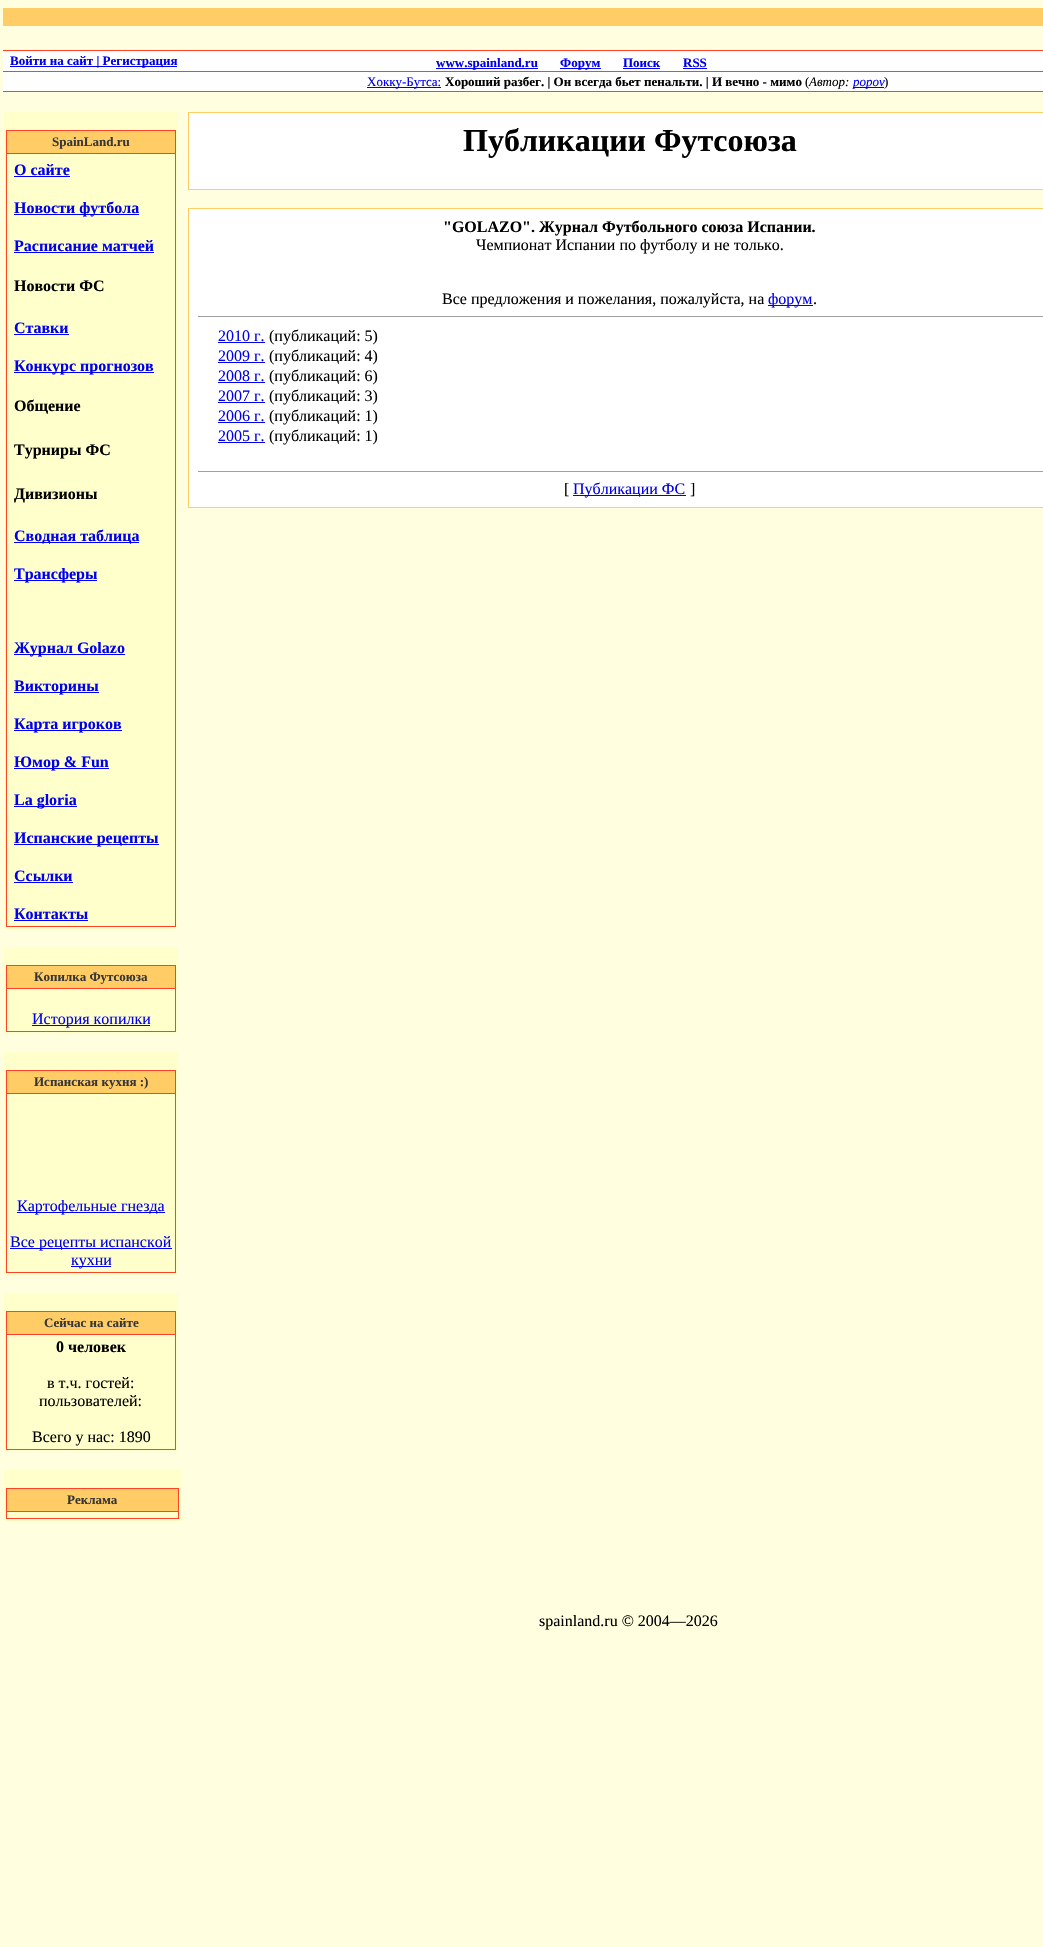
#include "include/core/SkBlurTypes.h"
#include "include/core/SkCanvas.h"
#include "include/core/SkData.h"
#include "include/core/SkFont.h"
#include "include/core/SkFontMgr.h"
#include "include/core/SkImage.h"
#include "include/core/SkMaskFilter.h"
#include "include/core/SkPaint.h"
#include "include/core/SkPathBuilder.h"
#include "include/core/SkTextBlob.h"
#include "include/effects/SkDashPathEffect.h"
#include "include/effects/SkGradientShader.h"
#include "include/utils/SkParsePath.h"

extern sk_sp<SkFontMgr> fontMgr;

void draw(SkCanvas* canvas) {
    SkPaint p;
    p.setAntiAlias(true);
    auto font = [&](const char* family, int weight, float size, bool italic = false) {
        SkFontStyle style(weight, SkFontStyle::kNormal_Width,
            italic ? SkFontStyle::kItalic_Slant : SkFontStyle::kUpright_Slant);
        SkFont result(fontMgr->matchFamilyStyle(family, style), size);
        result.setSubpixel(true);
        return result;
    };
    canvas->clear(0xFFFFFFDF);
    {
        const struct { float l, t, r, b; SkColor color; } items[] = {
            {3, 8, 1043, 26, 0xFFFFCC66},
            {3, 51, 1043, 91, 0xFFFEFEFE},
            {3, 50, 1043, 51, 0xFFFD4227},
            {10, 66, 177, 67, 0xFF0000EE},
        };
        for (auto [l, t, r, b, color] : items) {
            p.setColor(color);
            canvas->drawRect(SkRect::MakeLTRB(l, t, r, b), p);
        }
    }
    auto font1 = font("Liberation Serif", 700, 13);
    canvas->drawString("Войти на сайт | Регистрация", 10, 65, font1, p);
    canvas->drawRect(SkRect::MakeLTRB(436, 68, 538, 69), p);
    canvas->drawString("www.spainland.ru", 436, 67, font1, p);
    canvas->drawRect(SkRect::MakeLTRB(560, 68, 601, 69), p);
    canvas->drawString("Форум", 560, 67, font1, p);
    canvas->drawString("Поиск", 623, 67, font1, p);
    canvas->drawRect(SkRect::MakeLTRB(623, 68, 660, 69), p);
    canvas->drawString("RSS", 683, 67, font1, p);
    {
        const struct { float l, t, r, b; SkColor color; } items[] = {
            {683, 68, 707, 69, 0xFF0000EE},
            {3, 71, 1043, 72, 0xFFFD4227},
            {367, 87, 441, 88, 0xFF0000EE},
        };
        for (auto [l, t, r, b, color] : items) {
            p.setColor(color);
            canvas->drawRect(SkRect::MakeLTRB(l, t, r, b), p);
        }
    }
    auto font2 = font("Liberation Serif", 400, 13);
    canvas->drawString("Хокку-Бутса:", 367, 86, font2, p);
    p.setColor(0xFF000000);
    canvas->drawString("Хороший разбег. | Он всегда бьет пенальти. | И вечно - мимо", 445, 86, font1, p);
    canvas->drawString("(", 805, 86, font2, p);
    auto font3 = font("Liberation Serif", 400, 13, true);
    canvas->drawString("Автор:", 809, 86, font3, p);
    p.setColor(0xFF0000EE);
    canvas->drawRect(SkRect::MakeLTRB(853, 87, 884, 88), p);
    canvas->drawString("popov", 853, 86, font3, p);
    p.setColor(0xFF000000);
    canvas->drawString(")", 884, 86, font2, p);
    {
        const struct { float l, t, r, b; SkColor color; } items[] = {
            {3, 91, 1043, 92, 0xFFFD4227},
            {4, 112, 178, 929, 0xFFFFFFCC},
            {6, 130, 176, 927, 0xFFFD4227},
            {7, 131, 175, 153, 0xFFFFCC66},
        };
        for (auto [l, t, r, b, color] : items) {
            p.setColor(color);
            canvas->drawRect(SkRect::MakeLTRB(l, t, r, b), p);
        }
    }
    p.setColor(0xFF363636);
    canvas->drawString("SpainLand.ru", 52, 146, font1, p);
    p.setColor(0xFFFFFFCC);
    canvas->drawRect(SkRect::MakeLTRB(7, 154, 175, 926), p);
    auto font4 = font("Liberation Serif", 700, 16);
    p.setColor(0xFF0000EE);
    canvas->drawString("О сайте", 14, 175, font4, p);
    canvas->drawRect(SkRect::MakeLTRB(14, 176, 70, 177), p);
    canvas->drawRect(SkRect::MakeLTRB(14, 214, 139, 215), p);
    canvas->drawString("Новости футбола", 14, 213, font4, p);
    canvas->drawString("Расписание матчей", 14, 251, font4, p);
    canvas->drawRect(SkRect::MakeLTRB(14, 252, 154, 253), p);
    p.setColor(0xFF000000);
    canvas->drawString("Новости ФС", 14, 291, font4, p);
    p.setColor(0xFF0000EE);
    canvas->drawString("Ставки", 14, 333, font4, p);
    canvas->drawRect(SkRect::MakeLTRB(14, 334, 69, 335), p);
    canvas->drawRect(SkRect::MakeLTRB(14, 372, 154, 373), p);
    canvas->drawString("Конкурс прогнозов", 14, 371, font4, p);
    p.setColor(0xFF000000);
    {
        const struct { const char* s; float x, y; } items[] = {
            {"Общение", 14, 411},
            {"Турниры ФС", 14, 455},
            {"Дивизионы", 14, 499},
        };
        for (auto [s, x, y] : items) {
            canvas->drawString(s, x, y, font4, p);
        }
    }
    p.setColor(0xFF0000EE);
    canvas->drawRect(SkRect::MakeLTRB(14, 542, 139, 543), p);
    canvas->drawString("Сводная таблица", 14, 541, font4, p);
    canvas->drawRect(SkRect::MakeLTRB(14, 580, 97, 581), p);
    canvas->drawString("Трансферы", 14, 579, font4, p);
    canvas->drawRect(SkRect::MakeLTRB(14, 654, 125, 655), p);
    canvas->drawString("Журнал Golazo", 14, 653, font4, p);
    canvas->drawRect(SkRect::MakeLTRB(14, 692, 99, 693), p);
    canvas->drawString("Викторины", 14, 691, font4, p);
    canvas->drawRect(SkRect::MakeLTRB(14, 730, 122, 731), p);
    canvas->drawString("Карта игроков", 14, 729, font4, p);
    canvas->drawRect(SkRect::MakeLTRB(14, 768, 109, 769), p);
    canvas->drawString("Юмор & Fun", 14, 767, font4, p);
    canvas->drawRect(SkRect::MakeLTRB(14, 806, 77, 807), p);
    canvas->drawString("La gloria", 14, 805, font4, p);
    canvas->drawRect(SkRect::MakeLTRB(14, 844, 159, 845), p);
    canvas->drawString("Испанские рецепты", 14, 843, font4, p);
    canvas->drawString("Ссылки", 14, 881, font4, p);
    canvas->drawRect(SkRect::MakeLTRB(14, 882, 73, 883), p);
    canvas->drawString("Контакты", 14, 919, font4, p);
    {
        const struct { float l, t, r, b; SkColor color; } items[] = {
            {14, 920, 88, 921, 0xFF0000EE},
            {4, 947, 178, 1034, 0xFFFFFFCC},
            {6, 965, 176, 1032, 0xFFFD4227},
            {7, 966, 175, 988, 0xFFFFCC66},
        };
        for (auto [l, t, r, b, color] : items) {
            p.setColor(color);
            canvas->drawRect(SkRect::MakeLTRB(l, t, r, b), p);
        }
    }
    p.setColor(0xFF363636);
    canvas->drawString("Копилка Футсоюза", 34, 981, font1, p);
    p.setColor(0xFFFFFFCC);
    canvas->drawRect(SkRect::MakeLTRB(7, 989, 175, 1031), p);
    p.setColor(0xFF0000EE);
    canvas->drawRect(SkRect::MakeLTRB(32, 1025, 150, 1026), p);
    auto font5 = font("Liberation Serif", 400, 16);
    canvas->drawString("История копилки", 32, 1024, font5, p);
    {
        const struct { float l, t, r, b; SkColor color; } items[] = {
            {4, 1052, 178, 1275, 0xFFFFFFCC},
            {6, 1070, 176, 1273, 0xFFFD4227},
            {7, 1071, 175, 1093, 0xFFFFCC66},
        };
        for (auto [l, t, r, b, color] : items) {
            p.setColor(color);
            canvas->drawRect(SkRect::MakeLTRB(l, t, r, b), p);
        }
    }
    p.setColor(0xFF363636);
    canvas->drawString("Испанская кухня :)", 34, 1086, font1, p);
    p.setColor(0xFFFFFFCC);
    canvas->drawRect(SkRect::MakeLTRB(7, 1094, 175, 1272), p);
    p.setColor(0xFF0000EE);
    canvas->drawRect(SkRect::MakeLTRB(17, 1212, 165, 1213), p);
    canvas->drawString("Картофельные гнезда", 17, 1211, font5, p);
    canvas->drawRect(SkRect::MakeLTRB(10, 1248, 172, 1249), p);
    canvas->drawString("Все рецепты испанской", 10, 1247, font5, p);
    canvas->drawRect(SkRect::MakeLTRB(71, 1266, 111, 1267), p);
    canvas->drawString("кухни", 71, 1265, font5, p);
    {
        const struct { float l, t, r, b; SkColor color; } items[] = {
            {4, 1293, 178, 1452, 0xFFFFFFCC},
            {6, 1311, 176, 1450, 0xFFFD4227},
            {7, 1312, 175, 1334, 0xFFFFCC66},
        };
        for (auto [l, t, r, b, color] : items) {
            p.setColor(color);
            canvas->drawRect(SkRect::MakeLTRB(l, t, r, b), p);
        }
    }
    p.setColor(0xFF363636);
    canvas->drawString("Сейчас на сайте", 44, 1327, font1, p);
    p.setColor(0xFFFFFFCC);
    canvas->drawRect(SkRect::MakeLTRB(7, 1335, 175, 1449), p);
    p.setColor(0xFF000000);
    canvas->drawString("0 человек", 56, 1352, font4, p);
    {
        const struct { const char* s; float x, y; } items[] = {
            {"в т.ч. гостей:", 47, 1388},
            {"пользователей:", 39, 1406},
            {"Всего у нас: 1890", 32, 1442},
        };
        for (auto [s, x, y] : items) {
            canvas->drawString(s, x, y, font5, p);
        }
    }
    {
        const struct { float l, t, r, b; SkColor color; } items[] = {
            {4, 1470, 181, 1521, 0xFFFFFFCC},
            {6, 1488, 179, 1519, 0xFFFD4227},
            {7, 1489, 178, 1511, 0xFFFFCC66},
        };
        for (auto [l, t, r, b, color] : items) {
            p.setColor(color);
            canvas->drawRect(SkRect::MakeLTRB(l, t, r, b), p);
        }
    }
    p.setColor(0xFF363636);
    canvas->drawString("Реклама", 67, 1504, font1, p);
    {
        const struct { float l, t, r, b; SkColor color; } items[] = {
            {7, 1512, 178, 1518, 0xFFFFFFCC},
            {188, 112, 1043, 190, 0xFFFFCC66},
            {189, 113, 1043, 189, 0xFFFFFFFF},
        };
        for (auto [l, t, r, b, color] : items) {
            p.setColor(color);
            canvas->drawRect(SkRect::MakeLTRB(l, t, r, b), p);
        }
    }
    auto font6 = font("Liberation Serif", 700, 32);
    p.setColor(0xFF000000);
    canvas->drawString("Публикации Футсоюза", 463, 151, font6, p);
    p.setColor(0xFFFFCC66);
    canvas->drawRect(SkRect::MakeLTRB(188, 208, 1043, 508), p);
    p.setColor(0xFFFFFFFF);
    canvas->drawRect(SkRect::MakeLTRB(189, 209, 1043, 507), p);
    p.setColor(0xFF000000);
    canvas->drawString("\"GOLAZO\". Журнал Футбольного союза Испании.", 443, 232, font4, p);
    canvas->drawString("Чемпионат Испании по футболу и не только.", 476, 250, font5, p);
    canvas->drawString("Все предложения и пожелания, пожалуйста, на", 442, 304, font5, p);
    p.setColor(0xFF0000EE);
    canvas->drawRect(SkRect::MakeLTRB(768, 305, 813, 306), p);
    canvas->drawString("форум", 768, 304, font5, p);
    p.setColor(0xFF000000);
    canvas->drawString(".", 813, 304, font5, p);
    p.setColor(0xFF9F9F9F);
    canvas->drawRect(SkRect::MakeLTRB(198, 316, 1043, 317), p);
    p.setColor(0xFF0000EE);
    canvas->drawString("2010 г.", 218, 341, font5, p);
    canvas->drawRect(SkRect::MakeLTRB(218, 342, 265, 343), p);
    p.setColor(0xFF000000);
    canvas->drawString("(публикаций: 5)", 269, 341, font5, p);
    p.setColor(0xFF0000EE);
    canvas->drawString("2009 г.", 218, 361, font5, p);
    canvas->drawRect(SkRect::MakeLTRB(218, 362, 265, 363), p);
    p.setColor(0xFF000000);
    canvas->drawString("(публикаций: 4)", 269, 361, font5, p);
    p.setColor(0xFF0000EE);
    canvas->drawString("2008 г.", 218, 381, font5, p);
    canvas->drawRect(SkRect::MakeLTRB(218, 382, 265, 383), p);
    p.setColor(0xFF000000);
    canvas->drawString("(публикаций: 6)", 269, 381, font5, p);
    p.setColor(0xFF0000EE);
    canvas->drawString("2007 г.", 218, 401, font5, p);
    canvas->drawRect(SkRect::MakeLTRB(218, 402, 265, 403), p);
    p.setColor(0xFF000000);
    canvas->drawString("(публикаций: 3)", 269, 401, font5, p);
    p.setColor(0xFF0000EE);
    canvas->drawString("2006 г.", 218, 421, font5, p);
    canvas->drawRect(SkRect::MakeLTRB(218, 422, 265, 423), p);
    p.setColor(0xFF000000);
    canvas->drawString("(публикаций: 1)", 269, 421, font5, p);
    p.setColor(0xFF0000EE);
    canvas->drawString("2005 г.", 218, 441, font5, p);
    canvas->drawRect(SkRect::MakeLTRB(218, 442, 265, 443), p);
    p.setColor(0xFF000000);
    canvas->drawString("(публикаций: 1)", 269, 441, font5, p);
    p.setColor(0xFF9F9F9F);
    canvas->drawRect(SkRect::MakeLTRB(198, 471, 1043, 472), p);
    p.setColor(0xFF000000);
    canvas->drawString("[", 564, 494, font5, p);
    p.setColor(0xFF0000EE);
    canvas->drawRect(SkRect::MakeLTRB(573, 495, 686, 496), p);
    canvas->drawString("Публикации ФС", 573, 494, font5, p);
    p.setColor(0xFF000000);
    canvas->drawString("]", 690, 494, font5, p);
    canvas->drawString("spainland.ru © 2004—2026", 539, 1626, font5, p);
}
